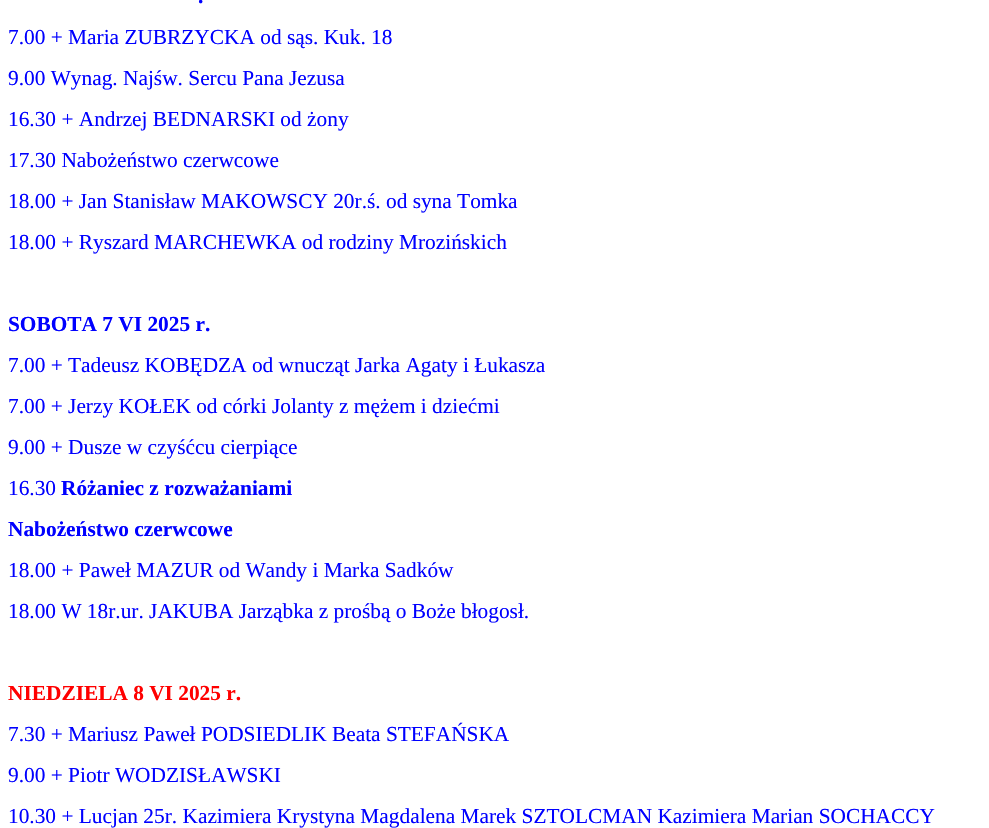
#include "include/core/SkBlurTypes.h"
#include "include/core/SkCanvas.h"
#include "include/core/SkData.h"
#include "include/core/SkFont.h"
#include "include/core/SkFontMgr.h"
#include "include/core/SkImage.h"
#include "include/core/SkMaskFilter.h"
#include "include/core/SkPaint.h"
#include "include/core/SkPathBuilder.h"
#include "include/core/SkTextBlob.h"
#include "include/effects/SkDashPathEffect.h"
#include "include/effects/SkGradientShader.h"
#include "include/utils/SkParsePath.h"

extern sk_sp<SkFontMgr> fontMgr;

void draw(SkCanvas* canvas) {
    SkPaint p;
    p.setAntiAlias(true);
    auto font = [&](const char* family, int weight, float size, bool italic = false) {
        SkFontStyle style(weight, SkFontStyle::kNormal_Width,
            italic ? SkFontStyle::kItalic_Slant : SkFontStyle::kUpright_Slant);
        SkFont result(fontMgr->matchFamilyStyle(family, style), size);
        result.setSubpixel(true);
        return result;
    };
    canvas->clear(0xFFFFFFFF);
    auto font1 = font("Liberation Serif", 700, 21.35f);
    p.setColor(0xFF0000FF);
    canvas->drawString(".", 198, 3, font1, p);
    auto font2 = font("Liberation Serif", 400, 21.35f);
    {
        const struct { const char* s; float x, y; } items[] = {
            {"7.00 + Maria ZUBRZYCKA od sąs. Kuk. 18", 8, 44},
            {"9.00 Wynag. Najśw. Sercu Pana Jezusa", 8, 85},
            {"16.30 + Andrzej BEDNARSKI od żony", 8, 126},
            {"17.30 Nabożeństwo czerwcowe", 8, 167},
            {"18.00 + Jan Stanisław MAKOWSCY 20r.ś. od syna Tomka", 8, 208},
            {"18.00 + Ryszard MARCHEWKA od rodziny Mrozińskich", 8, 249},
        };
        for (auto [s, x, y] : items) {
            canvas->drawString(s, x, y, font2, p);
        }
    }
    canvas->drawString("SOBOTA 7 VI 2025 r.", 8, 331, font1, p);
    {
        const struct { const char* s; float x, y; } items[] = {
            {"7.00 + Tadeusz KOBĘDZA od wnucząt Jarka Agaty i Łukasza", 8, 372},
            {"7.00 + Jerzy KOŁEK od córki Jolanty z mężem i dziećmi", 8, 413},
            {"9.00 + Dusze w czyśćcu cierpiące", 8, 454},
            {"16.30", 8, 495},
        };
        for (auto [s, x, y] : items) {
            canvas->drawString(s, x, y, font2, p);
        }
    }
    canvas->drawString("Różaniec z rozważaniami", 61, 495, font1, p);
    canvas->drawString("Nabożeństwo czerwcowe", 8, 536, font1, p);
    canvas->drawString("18.00 + Paweł MAZUR od Wandy i Marka Sadków", 8, 577, font2, p);
    canvas->drawString("18.00 W 18r.ur. JAKUBA Jarząbka z prośbą o Boże błogosł.", 8, 618, font2, p);
    p.setColor(0xFFFF0000);
    canvas->drawString("NIEDZIELA 8 VI 2025 r.", 8, 700, font1, p);
    p.setColor(0xFF0000FF);
    {
        const struct { const char* s; float x, y; } items[] = {
            {"7.30 + Mariusz Paweł PODSIEDLIK Beata STEFAŃSKA", 8, 741},
            {"9.00 + Piotr WODZISŁAWSKI", 8, 782},
            {"10.30 + Lucjan 25r. Kazimiera Krystyna Magdalena Marek SZTOLCMAN Kazimiera Marian SOCHACCY", 8, 823},
        };
        for (auto [s, x, y] : items) {
            canvas->drawString(s, x, y, font2, p);
        }
    }
}
